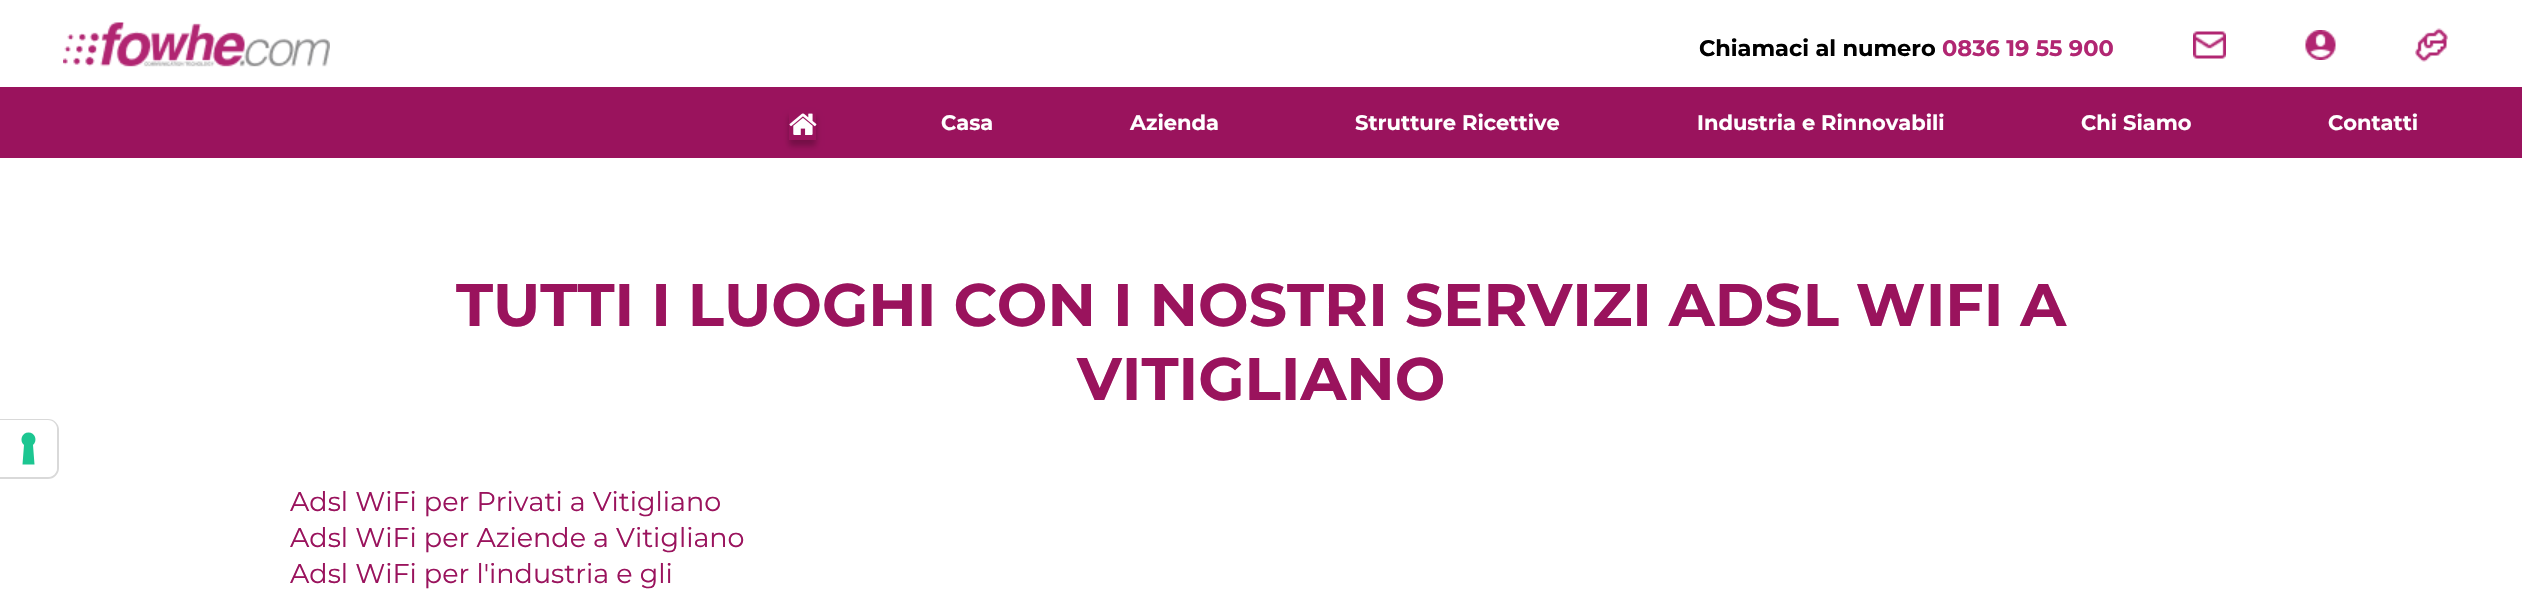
#include "include/core/SkBlurTypes.h"
#include "include/core/SkCanvas.h"
#include "include/core/SkData.h"
#include "include/core/SkFont.h"
#include "include/core/SkFontMgr.h"
#include "include/core/SkImage.h"
#include "include/core/SkMaskFilter.h"
#include "include/core/SkPaint.h"
#include "include/core/SkPathBuilder.h"
#include "include/core/SkTextBlob.h"
#include "include/effects/SkDashPathEffect.h"
#include "include/effects/SkGradientShader.h"
#include "include/utils/SkParsePath.h"

extern sk_sp<SkFontMgr> fontMgr;

void draw(SkCanvas* canvas) {
    SkPaint p;
    p.setAntiAlias(true);
    auto font = [&](const char* family, int weight, float size, bool italic = false) {
        SkFontStyle style(weight, SkFontStyle::kNormal_Width,
            italic ? SkFontStyle::kItalic_Slant : SkFontStyle::kUpright_Slant);
        SkFont result(fontMgr->matchFamilyStyle(family, style), size);
        result.setSubpixel(true);
        return result;
    };
    auto drawPhoto = [&](const char* path, float l, float t, float r, float b) {
        auto image = SkImages::DeferredFromEncodedData(SkData::MakeFromFileName(path));
        canvas->drawImageRect(image, SkRect::MakeLTRB(l, t, r, b), SkSamplingOptions());
    };
    canvas->clear(0xFFFFFFFF);
    p.setStyle(SkPaint::kStroke_Style);
    p.setStrokeWidth(2);
    p.setColor(0xFFD9D9D9);
    canvas->drawPath(SkPathBuilder().moveTo(0, 420).lineTo(48, 420).cubicTo(53.5f, 420, 58, 424.5f, 58, 430).lineTo(58, 468).cubicTo(58, 473.5f, 53.5f, 478, 48, 478).lineTo(0, 478).close().detach(), p);
    p.setStyle(SkPaint::kFill_Style);
    p.setColor(0xFFFFFFFF);
    canvas->drawPath(SkPathBuilder().moveTo(0, 420).lineTo(48, 420).cubicTo(53, 420, 57, 424, 57, 429).lineTo(57, 468).cubicTo(57, 473, 53, 477, 48, 477).lineTo(0, 477).close().detach(), p);
    p.setColor(0xFF1CC691);
    canvas->drawPath(SkPathBuilder(SkPathFillType::kEvenOdd).moveTo(28.5f, 432.5f).cubicTo(35, 432.5f, 38, 440.5f, 33, 445).lineTo(34.5f, 464.5f).lineTo(22.5f, 464.5f).lineTo(24, 445).cubicTo(19, 440.5f, 22, 432.5f, 28.5f, 432.5f).close().detach(), p);
    drawPhoto("media/1.png", 63, 22, 330, 67);
    auto font1 = font("Montserrat", 700, 22.5f);
    p.setColor(0xFF000000);
    canvas->drawString("Chiamaci al numero", 1699, 56, font1, p);
    p.setColor(0xFFB12672);
    canvas->drawString("0836 19 55 900", 1942, 56, font1, p);
    drawPhoto("media/2.png", 2193, 31, 2226, 59);
    drawPhoto("media/3.png", 2305, 30, 2336, 60);
    drawPhoto("media/4.png", 2415, 28, 2448, 62);
    p.setColor(0xFF9A135D);
    canvas->drawRect(SkRect::MakeLTRB(0, 87, 2522, 158), p);
    canvas->save();
    canvas->clipPath(SkPathBuilder(SkPathFillType::kEvenOdd).moveTo(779, 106).lineTo(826, 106).lineTo(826, 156).lineTo(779, 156).close().moveTo(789, 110).lineTo(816, 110).lineTo(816, 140).lineTo(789, 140).close().detach(), true);
    p.setColor(0x40000000);
    p.setMaskFilter(SkMaskFilter::MakeBlur(kNormal_SkBlurStyle, 3));
    canvas->drawRect(SkRect::MakeLTRB(789, 116, 816, 146), p);
    p.setMaskFilter(nullptr);
    canvas->restore();
    drawPhoto("media/5.png", 789, 113, 817, 135);
    auto font2 = font("Montserrat", 700, 21);
    p.setColor(0xFFFFFFFF);
    {
        const struct { const char* s; float x, y; } items[] = {
            {"Casa", 941, 130},
            {"Azienda", 1130, 130},
            {"Strutture Ricettive", 1355, 130},
            {"Industria e Rinnovabili", 1697, 130},
            {"Chi Siamo", 2081, 130},
            {"Contatti", 2328, 130},
        };
        for (auto [s, x, y] : items) {
            canvas->drawString(s, x, y, font2, p);
        }
    }
    auto font3 = font("Montserrat", 700, 60);
    p.setColor(0xFF9A135D);
    canvas->drawString("TUTTI I LUOGHI CON I NOSTRI SERVIZI ADSL WIFI A", 456, 326, font3, p);
    canvas->drawString("VITIGLIANO", 1077, 400, font3, p);
    auto font4 = font("Montserrat", 400, 27);
    {
        const struct { const char* s; float x, y; } items[] = {
            {"Adsl WiFi per Privati a Vitigliano", 290, 511},
            {"Adsl WiFi per Aziende a Vitigliano", 290, 547},
            {"Adsl WiFi per l'industria e gli", 290, 583},
        };
        for (auto [s, x, y] : items) {
            canvas->drawString(s, x, y, font4, p);
        }
    }
}
